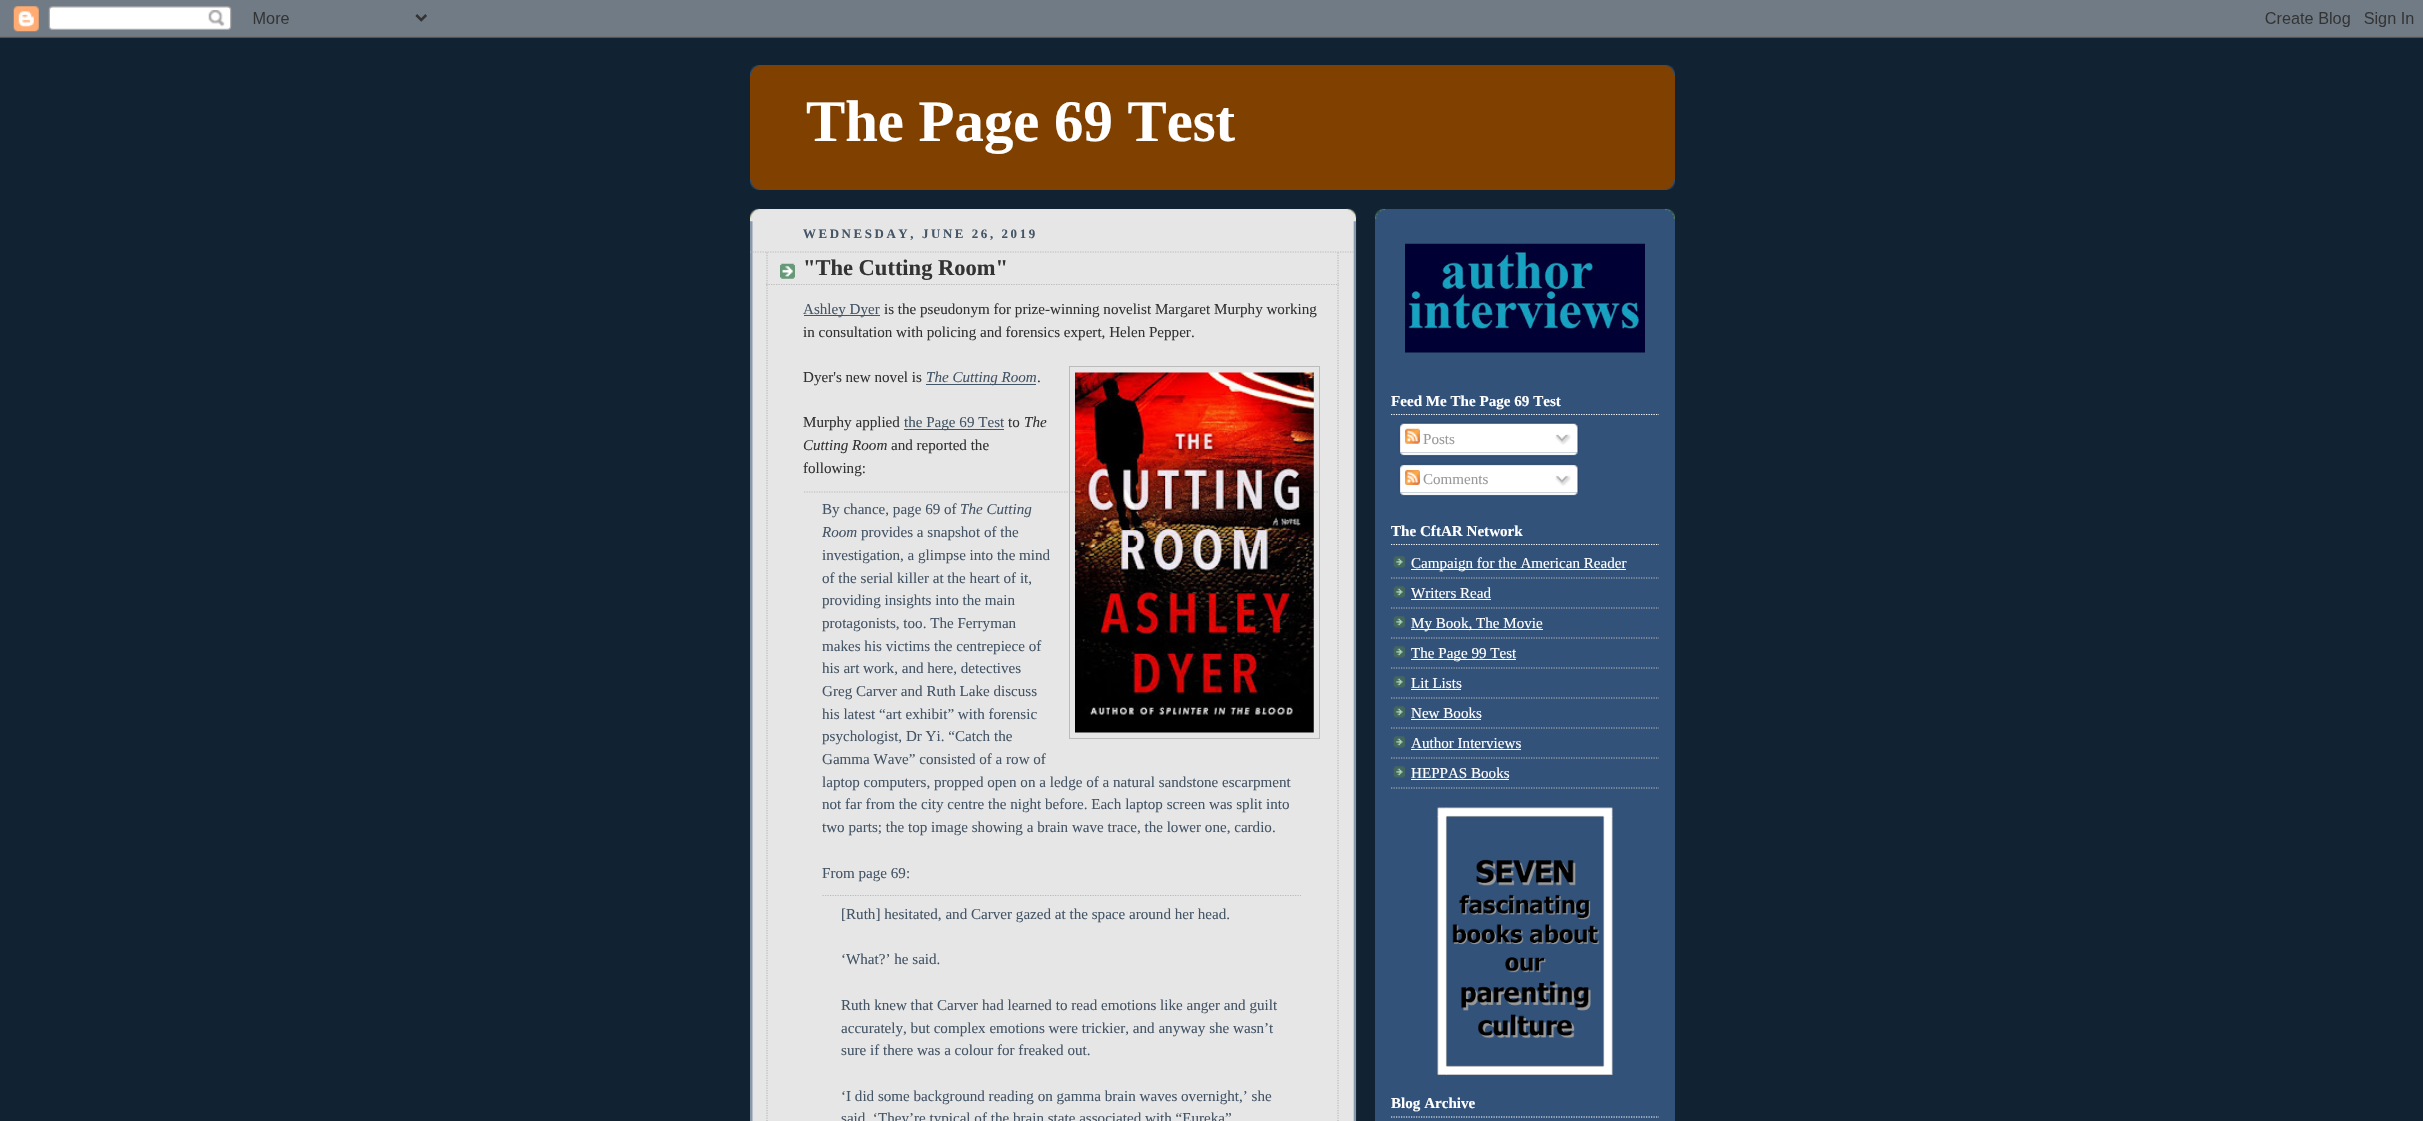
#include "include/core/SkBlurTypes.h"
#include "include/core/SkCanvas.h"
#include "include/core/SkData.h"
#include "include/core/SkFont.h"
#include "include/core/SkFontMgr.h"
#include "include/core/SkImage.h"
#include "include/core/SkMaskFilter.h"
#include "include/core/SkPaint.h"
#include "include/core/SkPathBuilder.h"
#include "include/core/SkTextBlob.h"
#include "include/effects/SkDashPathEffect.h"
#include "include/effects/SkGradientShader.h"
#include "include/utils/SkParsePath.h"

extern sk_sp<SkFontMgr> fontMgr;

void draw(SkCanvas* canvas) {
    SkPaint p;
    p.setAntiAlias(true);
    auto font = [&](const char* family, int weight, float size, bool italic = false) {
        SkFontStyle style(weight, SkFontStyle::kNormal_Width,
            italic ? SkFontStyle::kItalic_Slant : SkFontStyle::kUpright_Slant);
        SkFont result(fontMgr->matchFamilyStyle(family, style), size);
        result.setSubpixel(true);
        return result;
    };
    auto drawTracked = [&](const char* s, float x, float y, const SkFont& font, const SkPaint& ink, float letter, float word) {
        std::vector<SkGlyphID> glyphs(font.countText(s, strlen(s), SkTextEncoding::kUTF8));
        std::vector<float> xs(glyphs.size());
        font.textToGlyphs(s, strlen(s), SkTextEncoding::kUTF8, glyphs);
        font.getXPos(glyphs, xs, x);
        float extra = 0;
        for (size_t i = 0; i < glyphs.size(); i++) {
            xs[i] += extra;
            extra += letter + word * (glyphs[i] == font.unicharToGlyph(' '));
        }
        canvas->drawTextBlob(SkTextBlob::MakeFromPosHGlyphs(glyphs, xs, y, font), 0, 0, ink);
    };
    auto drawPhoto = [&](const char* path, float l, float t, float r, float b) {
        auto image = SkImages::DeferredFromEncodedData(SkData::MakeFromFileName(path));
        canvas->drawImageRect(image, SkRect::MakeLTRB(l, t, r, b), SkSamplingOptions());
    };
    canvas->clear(0xFF112233);
    drawPhoto("media/1.png", 0, 0, 2423, 38);
    p.setColor(0xFF804000);
    canvas->drawRect(SkRect::MakeLTRB(750, 65, 1675, 190), p);
    drawPhoto("media/2.png", 750, 65, 1675, 75);
    drawPhoto("media/3.png", 750, 180, 1675, 190);
    auto font1 = font("Liberation Serif", 700, 58.75f);
    p.setColor(0xFFFFFFFF);
    canvas->drawString("The Page 69 Test", 806, 141, font1, p);
    p.setColor(0xFFE6E6E6);
    canvas->drawRect(SkRect::MakeLTRB(750, 209, 1356, 1121), p);
    drawPhoto("media/4.png", 750, 208, 1357, 219);
    drawPhoto("media/5.png", 750, 221, 1357, 1121);
    auto font2 = font("Liberation Serif", 700, 12.9f);
    p.setColor(0xFF445566);
    drawTracked("WEDNESDAY, JUNE 26, 2019", 803, 238, font2, p, 2.6f, 0);
    p.setStyle(SkPaint::kStroke_Style);
    p.setStrokeWidth(1.2f);
    p.setColor(0xFFBBBBBB);
    p.setPathEffect(SkDashPathEffect::Make({{1.25f, 1.25f}}, 0));
    canvas->drawPath(SkPathBuilder().moveTo(750, 252).lineTo(1355, 252).detach(), p);
    p.setPathEffect(nullptr);
    drawPhoto("media/6.png", 780, 263, 795, 279);
    p.setPathEffect(SkDashPathEffect::Make({{1.25f, 1.25f}}, 0));
    canvas->drawPath(SkPathBuilder().moveTo(1338, 252.5f).lineTo(1338, 285).detach(), p);
    p.setPathEffect(nullptr);
    p.setPathEffect(SkDashPathEffect::Make({{1.25f, 1.25f}}, 0));
    canvas->drawPath(SkPathBuilder().moveTo(766, 284.5f).lineTo(1339, 284.5f).detach(), p);
    p.setPathEffect(nullptr);
    p.setPathEffect(SkDashPathEffect::Make({{1.25f, 1.25f}}, 0));
    canvas->drawPath(SkPathBuilder().moveTo(767, 252.5f).lineTo(767, 285).detach(), p);
    p.setPathEffect(nullptr);
    auto font3 = font("Liberation Serif", 700, 22.5f);
    p.setStyle(SkPaint::kFill_Style);
    p.setColor(0xFF333333);
    canvas->drawString("\"The Cutting Room\"", 803, 275, font3, p);
    p.setStyle(SkPaint::kStroke_Style);
    p.setColor(0xFFBBBBBB);
    p.setPathEffect(SkDashPathEffect::Make({{1.25f, 1.25f}}, 0));
    canvas->drawPath(SkPathBuilder().moveTo(1338, 285).lineTo(1338, 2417.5f).detach(), p);
    p.setPathEffect(nullptr);
    p.setPathEffect(SkDashPathEffect::Make({{1.25f, 1.25f}}, 0));
    canvas->drawPath(SkPathBuilder().moveTo(767, 285).lineTo(767, 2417.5f).detach(), p);
    p.setPathEffect(nullptr);
    p.setStyle(SkPaint::kFill_Style);
    p.setColor(0xFF445566);
    canvas->drawRect(SkRect::MakeLTRB(804, 315, 880, 316), p);
    auto font4 = font("Liberation Serif", 400, 15.1f);
    canvas->drawString("Ashley Dyer", 803, 314, font4, p);
    p.setColor(0xFF333333);
    {
        const struct { const char* s; float x, y; } items[] = {
            {"is the pseudonym for prize-winning novelist Margaret Murphy working", 884, 314},
            {"in consultation with policing and forensics expert, Helen Pepper.", 803, 337},
            {"Dyer's new novel is", 803, 382},
        };
        for (auto [s, x, y] : items) {
            canvas->drawString(s, x, y, font4, p);
        }
    }
    p.setColor(0xFF445566);
    canvas->drawRect(SkRect::MakeLTRB(926, 384, 1036, 385), p);
    auto font5 = font("Liberation Serif", 400, 15.1f, true);
    canvas->drawString("The Cutting Room", 926, 382, font5, p);
    p.setColor(0xFF333333);
    canvas->drawString(".", 1037, 382, font4, p);
    p.setStyle(SkPaint::kStroke_Style);
    p.setColor(0xFFBBBBBB);
    p.setPathEffect(SkDashPathEffect::Make({{1.25f, 1.25f}}, 0));
    canvas->drawPath(SkPathBuilder().moveTo(804, 492).lineTo(1320, 492).detach(), p);
    p.setPathEffect(nullptr);
    p.setStrokeWidth(1);
    canvas->drawRect(SkRect::MakeLTRB(1069.5f, 366.5f, 1319.5f, 738.5f), p);
    drawPhoto("media/7.png", 1075, 372, 1314, 733);
    p.setStyle(SkPaint::kFill_Style);
    p.setColor(0xFF333333);
    canvas->drawString("Murphy applied", 803, 427, font4, p);
    p.setColor(0xFF445566);
    canvas->drawRect(SkRect::MakeLTRB(904, 429, 1004, 430), p);
    canvas->drawString("the Page 69 Test", 904, 427, font4, p);
    p.setColor(0xFF333333);
    canvas->drawString("to", 1008, 427, font4, p);
    canvas->drawString("The", 1024, 427, font5, p);
    canvas->drawString("Cutting Room", 803, 450, font5, p);
    canvas->drawString("and reported the", 891, 450, font4, p);
    canvas->drawString("following:", 803, 473, font4, p);
    p.setColor(0xFF445566);
    canvas->drawString("By chance, page 69 of", 822, 514, font4, p);
    canvas->drawString("The Cutting", 960, 514, font5, p);
    canvas->drawString("Room", 822, 537, font5, p);
    {
        const struct { const char* s; float x, y; } items[] = {
            {"provides a snapshot of the", 861, 537},
            {"investigation, a glimpse into the mind", 822, 560},
            {"of the serial killer at the heart of it,", 822, 583},
            {"providing insights into the main", 822, 605},
            {"protagonists, too. The Ferryman", 822, 628},
            {"makes his victims the centrepiece of", 822, 651},
            {"his art work, and here, detectives", 822, 673},
            {"Greg Carver and Ruth Lake discuss", 822, 696},
            {"his latest “art exhibit” with forensic", 822, 719},
            {"psychologist, Dr Yi. “Catch the", 822, 741},
            {"Gamma Wave” consisted of a row of", 822, 764},
            {"laptop computers, propped open on a ledge of a natural sandstone escarpment", 822, 787},
            {"not far from the city centre the night before. Each laptop screen was split into", 822, 809},
            {"two parts; the top image showing a brain wave trace, the lower one, cardio.", 822, 832},
            {"From page 69:", 822, 878},
        };
        for (auto [s, x, y] : items) {
            canvas->drawString(s, x, y, font4, p);
        }
    }
    p.setStyle(SkPaint::kStroke_Style);
    p.setStrokeWidth(1.2f);
    p.setColor(0xFFBBBBBB);
    p.setPathEffect(SkDashPathEffect::Make({{1.25f, 1.25f}}, 0));
    canvas->drawPath(SkPathBuilder().moveTo(822.5f, 895.5f).lineTo(1301, 895.5f).detach(), p);
    p.setPathEffect(nullptr);
    p.setStyle(SkPaint::kFill_Style);
    p.setColor(0xFF445566);
    {
        const struct { const char* s; float x, y; } items[] = {
            {"[Ruth] hesitated, and Carver gazed at the space around her head.", 841, 919},
            {"‘What?’ he said.", 841, 964},
            {"Ruth knew that Carver had learned to read emotions like anger and guilt", 841, 1010},
            {"accurately, but complex emotions were trickier, and anyway she wasn’t", 841, 1033},
            {"sure if there was a colour for freaked out.", 841, 1055},
            {"‘I did some background reading on gamma brain waves overnight,’ she", 841, 1101},
            {"said. ‘They’re typical of the brain state associated with “Eureka”", 841, 1123},
        };
        for (auto [s, x, y] : items) {
            canvas->drawString(s, x, y, font4, p);
        }
    }
    p.setColor(0xFF32527A);
    canvas->drawRect(SkRect::MakeLTRB(1375, 209, 1675, 1121), p);
    drawPhoto("media/8.png", 1375, 208, 1675, 219);
    drawPhoto("media/9.png", 1405, 243, 1645, 353);
    p.setStyle(SkPaint::kStroke_Style);
    p.setColor(0xFFFFFFFF);
    p.setPathEffect(SkDashPathEffect::Make({{1.25f, 1.25f}}, 0));
    canvas->drawPath(SkPathBuilder().moveTo(1391, 414.5f).lineTo(1659, 414.5f).detach(), p);
    p.setPathEffect(nullptr);
    auto font6 = font("Liberation Serif", 700, 15.1f);
    p.setStyle(SkPaint::kFill_Style);
    canvas->drawString("Feed Me The Page 69 Test", 1391, 406, font6, p);
    drawPhoto("media/10.png", 1398, 422, 1579, 453);
    drawPhoto("media/11.png", 1405, 428, 1420, 444);
    p.setColor(0xFF999999);
    canvas->drawString("Posts", 1423, 444, font4, p);
    drawPhoto("media/12.png", 1555, 434, 1571, 445);
    drawPhoto("media/13.png", 1399, 452, 1579, 457);
    drawPhoto("media/14.png", 1398, 463, 1579, 493);
    drawPhoto("media/15.png", 1405, 470, 1420, 485);
    canvas->drawString("Comments", 1423, 484, font4, p);
    drawPhoto("media/16.png", 1555, 475, 1571, 486);
    drawPhoto("media/13.png", 1399, 492, 1579, 497);
    p.setStyle(SkPaint::kStroke_Style);
    p.setColor(0xFFFFFFFF);
    p.setPathEffect(SkDashPathEffect::Make({{1.25f, 1.25f}}, 0));
    canvas->drawPath(SkPathBuilder().moveTo(1391, 544.5f).lineTo(1659, 544.5f).detach(), p);
    p.setPathEffect(nullptr);
    p.setStyle(SkPaint::kFill_Style);
    canvas->drawString("The CftAR Network", 1391, 536, font6, p);
    drawPhoto("media/17.png", 1393, 556, 1405, 568);
    p.setStyle(SkPaint::kStroke_Style);
    p.setColor(0xFFBBBBBB);
    p.setPathEffect(SkDashPathEffect::Make({{1.25f, 1.25f}}, 0));
    canvas->drawPath(SkPathBuilder().moveTo(1391, 578).lineTo(1659, 578).detach(), p);
    p.setPathEffect(nullptr);
    p.setStyle(SkPaint::kFill_Style);
    p.setColor(0xFFFFFFFF);
    canvas->drawRect(SkRect::MakeLTRB(1411, 569, 1626, 570), p);
    canvas->drawString("Campaign for the American Reader", 1411, 568, font4, p);
    drawPhoto("media/18.png", 1393, 586, 1405, 598);
    p.setStyle(SkPaint::kStroke_Style);
    p.setColor(0xFFBBBBBB);
    p.setPathEffect(SkDashPathEffect::Make({{1.25f, 1.25f}}, 0));
    canvas->drawPath(SkPathBuilder().moveTo(1391, 608).lineTo(1659, 608).detach(), p);
    p.setPathEffect(nullptr);
    p.setStyle(SkPaint::kFill_Style);
    p.setColor(0xFFFFFFFF);
    canvas->drawString("Writers Read", 1411, 598, font4, p);
    canvas->drawRect(SkRect::MakeLTRB(1411, 599, 1491, 600), p);
    drawPhoto("media/17.png", 1393, 616, 1405, 628);
    p.setStyle(SkPaint::kStroke_Style);
    p.setColor(0xFFBBBBBB);
    p.setPathEffect(SkDashPathEffect::Make({{1.25f, 1.25f}}, 0));
    canvas->drawPath(SkPathBuilder().moveTo(1391, 638).lineTo(1659, 638).detach(), p);
    p.setPathEffect(nullptr);
    p.setStyle(SkPaint::kFill_Style);
    p.setColor(0xFFFFFFFF);
    canvas->drawRect(SkRect::MakeLTRB(1411, 629, 1543, 630), p);
    canvas->drawString("My Book, The Movie", 1411, 628, font4, p);
    drawPhoto("media/17.png", 1393, 646, 1405, 658);
    p.setStyle(SkPaint::kStroke_Style);
    p.setColor(0xFFBBBBBB);
    p.setPathEffect(SkDashPathEffect::Make({{1.25f, 1.25f}}, 0));
    canvas->drawPath(SkPathBuilder().moveTo(1391, 668).lineTo(1659, 668).detach(), p);
    p.setPathEffect(nullptr);
    p.setStyle(SkPaint::kFill_Style);
    p.setColor(0xFFFFFFFF);
    canvas->drawRect(SkRect::MakeLTRB(1411, 659, 1516, 660), p);
    canvas->drawString("The Page 99 Test", 1411, 658, font4, p);
    drawPhoto("media/17.png", 1393, 676, 1405, 688);
    p.setStyle(SkPaint::kStroke_Style);
    p.setColor(0xFFBBBBBB);
    p.setPathEffect(SkDashPathEffect::Make({{1.25f, 1.25f}}, 0));
    canvas->drawPath(SkPathBuilder().moveTo(1391, 698).lineTo(1659, 698).detach(), p);
    p.setPathEffect(nullptr);
    p.setStyle(SkPaint::kFill_Style);
    p.setColor(0xFFFFFFFF);
    canvas->drawString("Lit Lists", 1411, 688, font4, p);
    canvas->drawRect(SkRect::MakeLTRB(1411, 689, 1461, 690), p);
    drawPhoto("media/17.png", 1393, 706, 1405, 718);
    p.setStyle(SkPaint::kStroke_Style);
    p.setColor(0xFFBBBBBB);
    p.setPathEffect(SkDashPathEffect::Make({{1.25f, 1.25f}}, 0));
    canvas->drawPath(SkPathBuilder().moveTo(1391, 728).lineTo(1659, 728).detach(), p);
    p.setPathEffect(nullptr);
    p.setStyle(SkPaint::kFill_Style);
    p.setColor(0xFFFFFFFF);
    canvas->drawString("New Books", 1411, 718, font4, p);
    canvas->drawRect(SkRect::MakeLTRB(1411, 719, 1481, 720), p);
    drawPhoto("media/17.png", 1393, 736, 1405, 748);
    p.setStyle(SkPaint::kStroke_Style);
    p.setColor(0xFFBBBBBB);
    p.setPathEffect(SkDashPathEffect::Make({{1.25f, 1.25f}}, 0));
    canvas->drawPath(SkPathBuilder().moveTo(1391, 758).lineTo(1659, 758).detach(), p);
    p.setPathEffect(nullptr);
    p.setStyle(SkPaint::kFill_Style);
    p.setColor(0xFFFFFFFF);
    canvas->drawString("Author Interviews", 1411, 748, font4, p);
    canvas->drawRect(SkRect::MakeLTRB(1411, 749, 1521, 750), p);
    drawPhoto("media/17.png", 1393, 766, 1405, 778);
    p.setStyle(SkPaint::kStroke_Style);
    p.setColor(0xFFBBBBBB);
    p.setPathEffect(SkDashPathEffect::Make({{1.25f, 1.25f}}, 0));
    canvas->drawPath(SkPathBuilder().moveTo(1391, 788).lineTo(1659, 788).detach(), p);
    p.setPathEffect(nullptr);
    p.setStyle(SkPaint::kFill_Style);
    p.setColor(0xFFFFFFFF);
    canvas->drawString("HEPPAS Books", 1411, 778, font4, p);
    canvas->drawRect(SkRect::MakeLTRB(1411, 779, 1509, 780), p);
    drawPhoto("media/19.png", 1437, 807, 1613, 1075);
    p.setStyle(SkPaint::kStroke_Style);
    p.setPathEffect(SkDashPathEffect::Make({{1.25f, 1.25f}}, 0));
    canvas->drawPath(SkPathBuilder().moveTo(1391, 1117).lineTo(1659, 1117).detach(), p);
    p.setPathEffect(nullptr);
    p.setStyle(SkPaint::kFill_Style);
    canvas->drawString("Blog Archive", 1391, 1108, font6, p);
}
